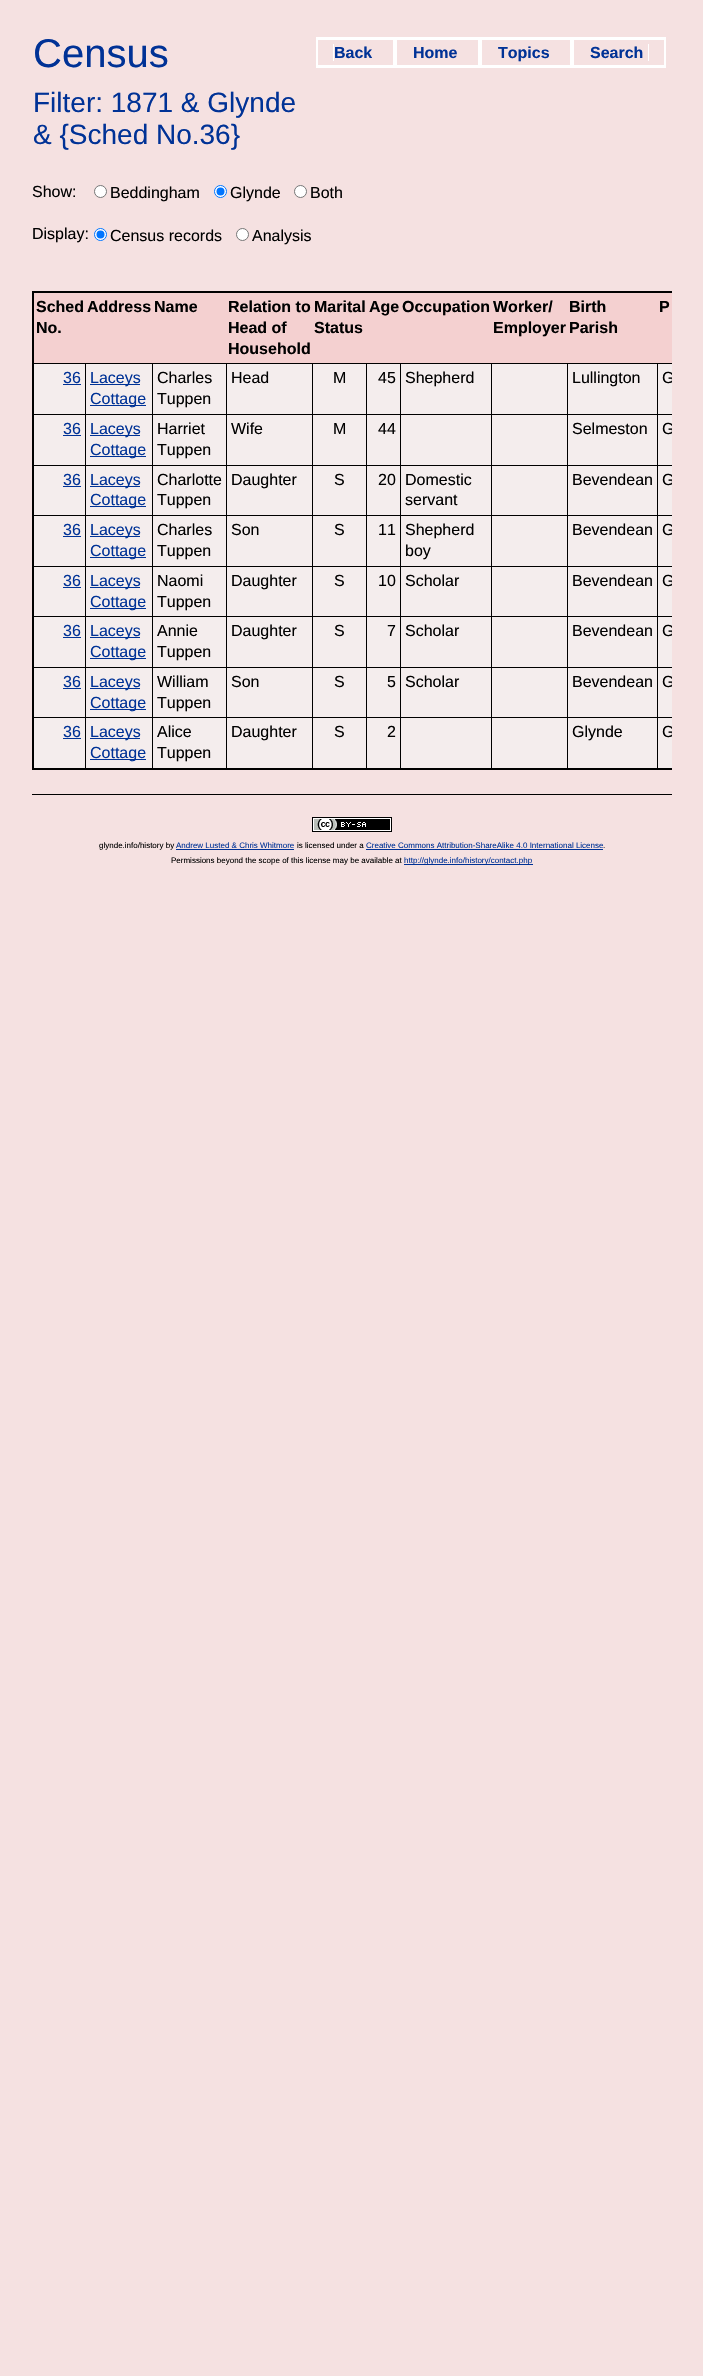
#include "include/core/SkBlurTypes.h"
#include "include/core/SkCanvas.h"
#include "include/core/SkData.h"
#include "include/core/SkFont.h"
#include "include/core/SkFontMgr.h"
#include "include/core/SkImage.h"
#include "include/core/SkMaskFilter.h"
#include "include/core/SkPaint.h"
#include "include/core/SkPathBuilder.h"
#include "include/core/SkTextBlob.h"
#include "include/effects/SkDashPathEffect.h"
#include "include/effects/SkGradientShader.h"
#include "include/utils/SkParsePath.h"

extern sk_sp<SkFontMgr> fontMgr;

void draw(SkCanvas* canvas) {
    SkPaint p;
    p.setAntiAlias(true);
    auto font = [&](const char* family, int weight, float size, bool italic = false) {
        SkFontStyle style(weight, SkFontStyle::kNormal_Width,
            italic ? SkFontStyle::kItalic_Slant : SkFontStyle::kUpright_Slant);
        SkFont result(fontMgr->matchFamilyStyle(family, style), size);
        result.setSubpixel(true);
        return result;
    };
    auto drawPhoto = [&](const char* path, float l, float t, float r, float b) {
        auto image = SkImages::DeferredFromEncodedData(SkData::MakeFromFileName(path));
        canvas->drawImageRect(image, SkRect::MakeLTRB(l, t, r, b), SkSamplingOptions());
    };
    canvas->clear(0xFFF5E1E1);
    auto font1 = font("Liberation Sans", 400, 40);
    p.setColor(0xFF003296);
    canvas->drawString("Census", 33, 67, font1, p);
    auto font2 = font("Liberation Sans", 400, 28);
    canvas->drawString("Filter: 1871 & Glynde", 33, 112, font2, p);
    canvas->drawString("& {Sched No.36}", 33, 144, font2, p);
    auto font3 = font("Liberation Sans", 700, 16);
    canvas->drawString("Back", 334, 58, font3, p);
    {
        const struct { float l, t, r, b; SkColor color; } items[] = {
            {333, 44, 334, 61, 0xFFFFFFFF},
            {316, 37, 666, 40, 0xFFFFFFFF},
            {393, 37, 395, 68, 0xFFFFFFFF},
            {316, 65, 395, 68, 0xFFFFFFFF},
            {316, 37, 318, 68, 0xFFFFFFFF},
        };
        for (auto [l, t, r, b, color] : items) {
            p.setColor(color);
            canvas->drawRect(SkRect::MakeLTRB(l, t, r, b), p);
        }
    }
    p.setColor(0xFF003296);
    canvas->drawString("Home", 413, 58, font3, p);
    {
        const struct { float l, t, r, b; SkColor color; } items[] = {
            {478, 37, 480, 68, 0xFFFFFFFF},
            {395, 65, 480, 68, 0xFFFFFFFF},
            {395, 37, 397, 68, 0xFFFFFFFF},
        };
        for (auto [l, t, r, b, color] : items) {
            p.setColor(color);
            canvas->drawRect(SkRect::MakeLTRB(l, t, r, b), p);
        }
    }
    p.setColor(0xFF003296);
    canvas->drawString("Topics", 498, 58, font3, p);
    {
        const struct { float l, t, r, b; SkColor color; } items[] = {
            {570, 37, 572, 68, 0xFFFFFFFF},
            {480, 65, 572, 68, 0xFFFFFFFF},
            {480, 37, 482, 68, 0xFFFFFFFF},
        };
        for (auto [l, t, r, b, color] : items) {
            p.setColor(color);
            canvas->drawRect(SkRect::MakeLTRB(l, t, r, b), p);
        }
    }
    p.setColor(0xFF003296);
    canvas->drawString("Search", 590, 58, font3, p);
    {
        const struct { float l, t, r, b; SkColor color; } items[] = {
            {648, 44, 649, 61, 0xFFFFFFFF},
            {664, 37, 666, 68, 0xFFFFFFFF},
            {572, 65, 666, 68, 0xFFFFFFFF},
            {572, 37, 574, 68, 0xFFFFFFFF},
        };
        for (auto [l, t, r, b, color] : items) {
            p.setColor(color);
            canvas->drawRect(SkRect::MakeLTRB(l, t, r, b), p);
        }
    }
    auto font4 = font("Liberation Sans", 400, 16);
    p.setColor(0xFF000000);
    canvas->drawString("Show:", 32, 197, font4, p);
    canvas->drawString("Display:", 32, 239, font4, p);
    p.setColor(0xFFFFFFFF);
    canvas->drawCircle(100.5f, 191.5f, 6, p);
    p.setStyle(SkPaint::kStroke_Style);
    p.setStrokeWidth(1);
    p.setColor(0xFF767676);
    canvas->drawCircle(100.5f, 191.5f, 6, p);
    p.setStyle(SkPaint::kFill_Style);
    p.setColor(0xFF000000);
    canvas->drawString("Beddingham", 110, 198, font4, p);
    p.setColor(0xFFFFFFFF);
    canvas->drawCircle(220.5f, 191.5f, 6, p);
    p.setStyle(SkPaint::kStroke_Style);
    p.setColor(0xFF0075FF);
    canvas->drawCircle(220.5f, 191.5f, 6, p);
    p.setStyle(SkPaint::kFill_Style);
    canvas->drawCircle(220.5f, 191.5f, 4, p);
    p.setColor(0xFF000000);
    canvas->drawString("Glynde", 230, 198, font4, p);
    p.setColor(0xFFFFFFFF);
    canvas->drawCircle(300.5f, 191.5f, 6, p);
    p.setStyle(SkPaint::kStroke_Style);
    p.setColor(0xFF767676);
    canvas->drawCircle(300.5f, 191.5f, 6, p);
    p.setStyle(SkPaint::kFill_Style);
    p.setColor(0xFF000000);
    canvas->drawString("Both", 310, 198, font4, p);
    p.setColor(0xFFFFFFFF);
    canvas->drawCircle(100.5f, 234.5f, 6, p);
    p.setStyle(SkPaint::kStroke_Style);
    p.setColor(0xFF0075FF);
    canvas->drawCircle(100.5f, 234.5f, 6, p);
    p.setStyle(SkPaint::kFill_Style);
    canvas->drawCircle(100.5f, 234.5f, 4, p);
    p.setColor(0xFF000000);
    canvas->drawString("Census records", 110, 241, font4, p);
    p.setColor(0xFFFFFFFF);
    canvas->drawCircle(242.5f, 234.5f, 6, p);
    p.setStyle(SkPaint::kStroke_Style);
    p.setColor(0xFF767676);
    canvas->drawCircle(242.5f, 234.5f, 6, p);
    p.setStyle(SkPaint::kFill_Style);
    p.setColor(0xFF000000);
    canvas->drawString("Analysis", 252, 241, font4, p);
    {
        const struct { float l, t, r, b; SkColor color; } items[] = {
            {32, 291, 672, 293, 0xFF000000},
            {34, 718, 672, 768, 0xFFF4EDED},
            {657, 717, 672, 718, 0xFF000000},
            {657, 717, 658, 770, 0xFF000000},
            {567, 717, 658, 718, 0xFF000000},
            {567, 717, 568, 770, 0xFF000000},
            {491, 717, 568, 718, 0xFF000000},
            {491, 717, 492, 770, 0xFF000000},
            {400, 717, 492, 718, 0xFF000000},
            {400, 717, 401, 770, 0xFF000000},
            {366, 717, 401, 718, 0xFF000000},
            {366, 717, 367, 770, 0xFF000000},
            {312, 717, 367, 718, 0xFF000000},
            {312, 717, 313, 770, 0xFF000000},
            {226, 717, 313, 718, 0xFF000000},
            {226, 717, 227, 770, 0xFF000000},
            {152, 717, 227, 718, 0xFF000000},
            {152, 717, 153, 770, 0xFF000000},
            {85, 717, 153, 718, 0xFF000000},
            {85, 717, 86, 770, 0xFF000000},
            {32, 768, 672, 770, 0xFF000000},
            {657, 363, 672, 364, 0xFF000000},
            {34, 364, 672, 414, 0xFFF4EDED},
            {657, 414, 672, 415, 0xFF000000},
            {34, 415, 672, 465, 0xFFF4EDED},
            {657, 465, 672, 466, 0xFF000000},
            {34, 466, 672, 515, 0xFFF4EDED},
            {657, 515, 672, 516, 0xFF000000},
            {34, 516, 672, 566, 0xFFF4EDED},
            {657, 566, 672, 567, 0xFF000000},
            {34, 567, 672, 616, 0xFFF4EDED},
            {657, 616, 672, 617, 0xFF000000},
            {34, 617, 672, 667, 0xFFF4EDED},
            {657, 667, 672, 668, 0xFF000000},
            {34, 668, 672, 717, 0xFFF4EDED},
            {657, 667, 658, 718, 0xFF000000},
            {567, 667, 658, 668, 0xFF000000},
            {657, 616, 658, 668, 0xFF000000},
            {567, 616, 658, 617, 0xFF000000},
            {657, 566, 658, 617, 0xFF000000},
            {567, 566, 658, 567, 0xFF000000},
            {657, 515, 658, 567, 0xFF000000},
            {567, 515, 658, 516, 0xFF000000},
            {657, 465, 658, 516, 0xFF000000},
            {567, 465, 658, 466, 0xFF000000},
            {657, 414, 658, 466, 0xFF000000},
            {567, 414, 658, 415, 0xFF000000},
            {657, 363, 658, 415, 0xFF000000},
            {567, 363, 658, 364, 0xFF000000},
            {567, 667, 568, 718, 0xFF000000},
            {491, 667, 568, 668, 0xFF000000},
            {567, 616, 568, 668, 0xFF000000},
            {491, 616, 568, 617, 0xFF000000},
            {567, 566, 568, 617, 0xFF000000},
            {491, 566, 568, 567, 0xFF000000},
            {567, 515, 568, 567, 0xFF000000},
            {491, 515, 568, 516, 0xFF000000},
            {567, 465, 568, 516, 0xFF000000},
            {491, 465, 568, 466, 0xFF000000},
            {567, 414, 568, 466, 0xFF000000},
            {491, 414, 568, 415, 0xFF000000},
            {567, 363, 568, 415, 0xFF000000},
            {491, 363, 568, 364, 0xFF000000},
            {491, 667, 492, 718, 0xFF000000},
            {400, 667, 492, 668, 0xFF000000},
            {491, 616, 492, 668, 0xFF000000},
            {400, 616, 492, 617, 0xFF000000},
            {491, 566, 492, 617, 0xFF000000},
            {400, 566, 492, 567, 0xFF000000},
            {491, 515, 492, 567, 0xFF000000},
            {400, 515, 492, 516, 0xFF000000},
            {491, 465, 492, 516, 0xFF000000},
            {400, 465, 492, 466, 0xFF000000},
            {491, 414, 492, 466, 0xFF000000},
            {400, 414, 492, 415, 0xFF000000},
            {491, 363, 492, 415, 0xFF000000},
            {400, 363, 492, 364, 0xFF000000},
            {400, 667, 401, 718, 0xFF000000},
            {366, 667, 401, 668, 0xFF000000},
            {400, 616, 401, 668, 0xFF000000},
            {366, 616, 401, 617, 0xFF000000},
            {400, 566, 401, 617, 0xFF000000},
            {366, 566, 401, 567, 0xFF000000},
            {400, 515, 401, 567, 0xFF000000},
            {366, 515, 401, 516, 0xFF000000},
            {400, 465, 401, 516, 0xFF000000},
            {366, 465, 401, 466, 0xFF000000},
            {400, 414, 401, 466, 0xFF000000},
            {366, 414, 401, 415, 0xFF000000},
            {400, 363, 401, 415, 0xFF000000},
            {366, 363, 401, 364, 0xFF000000},
            {366, 667, 367, 718, 0xFF000000},
            {312, 667, 367, 668, 0xFF000000},
            {366, 616, 367, 668, 0xFF000000},
            {312, 616, 367, 617, 0xFF000000},
            {366, 566, 367, 617, 0xFF000000},
            {312, 566, 367, 567, 0xFF000000},
            {366, 515, 367, 567, 0xFF000000},
            {312, 515, 367, 516, 0xFF000000},
            {366, 465, 367, 516, 0xFF000000},
            {312, 465, 367, 466, 0xFF000000},
            {366, 414, 367, 466, 0xFF000000},
            {312, 414, 367, 415, 0xFF000000},
            {366, 363, 367, 415, 0xFF000000},
            {312, 363, 367, 364, 0xFF000000},
            {312, 667, 313, 718, 0xFF000000},
            {226, 667, 313, 668, 0xFF000000},
            {312, 616, 313, 668, 0xFF000000},
            {226, 616, 313, 617, 0xFF000000},
            {312, 566, 313, 617, 0xFF000000},
            {226, 566, 313, 567, 0xFF000000},
            {312, 515, 313, 567, 0xFF000000},
            {226, 515, 313, 516, 0xFF000000},
            {312, 465, 313, 516, 0xFF000000},
            {226, 465, 313, 466, 0xFF000000},
            {312, 414, 313, 466, 0xFF000000},
            {226, 414, 313, 415, 0xFF000000},
            {312, 363, 313, 415, 0xFF000000},
            {226, 363, 313, 364, 0xFF000000},
            {226, 667, 227, 718, 0xFF000000},
            {152, 667, 227, 668, 0xFF000000},
            {226, 616, 227, 668, 0xFF000000},
            {152, 616, 227, 617, 0xFF000000},
            {226, 566, 227, 617, 0xFF000000},
            {152, 566, 227, 567, 0xFF000000},
            {226, 515, 227, 567, 0xFF000000},
            {152, 515, 227, 516, 0xFF000000},
            {226, 465, 227, 516, 0xFF000000},
            {152, 465, 227, 466, 0xFF000000},
            {226, 414, 227, 466, 0xFF000000},
            {152, 414, 227, 415, 0xFF000000},
            {226, 363, 227, 415, 0xFF000000},
            {152, 363, 227, 364, 0xFF000000},
            {152, 667, 153, 718, 0xFF000000},
            {85, 667, 153, 668, 0xFF000000},
            {152, 616, 153, 668, 0xFF000000},
            {85, 616, 153, 617, 0xFF000000},
            {152, 566, 153, 617, 0xFF000000},
            {85, 566, 153, 567, 0xFF000000},
            {152, 515, 153, 567, 0xFF000000},
            {85, 515, 153, 516, 0xFF000000},
            {152, 465, 153, 516, 0xFF000000},
            {85, 465, 153, 466, 0xFF000000},
            {152, 414, 153, 466, 0xFF000000},
            {85, 414, 153, 415, 0xFF000000},
            {152, 363, 153, 415, 0xFF000000},
            {85, 363, 153, 364, 0xFF000000},
            {33, 717, 86, 718, 0xFF000000},
            {85, 667, 86, 718, 0xFF000000},
            {33, 667, 86, 668, 0xFF000000},
            {85, 616, 86, 668, 0xFF000000},
            {33, 616, 86, 617, 0xFF000000},
            {85, 566, 86, 617, 0xFF000000},
            {33, 566, 86, 567, 0xFF000000},
            {85, 515, 86, 567, 0xFF000000},
            {33, 515, 86, 516, 0xFF000000},
            {85, 465, 86, 516, 0xFF000000},
            {33, 465, 86, 466, 0xFF000000},
            {85, 414, 86, 466, 0xFF000000},
            {33, 414, 86, 415, 0xFF000000},
            {85, 363, 86, 415, 0xFF000000},
            {33, 363, 86, 364, 0xFF000000},
            {32, 291, 34, 770, 0xFF000000},
            {34, 293, 672, 363, 0xFFF4D0D0},
        };
        for (auto [l, t, r, b, color] : items) {
            p.setColor(color);
            canvas->drawRect(SkRect::MakeLTRB(l, t, r, b), p);
        }
    }
    p.setColor(0xFF000000);
    {
        const struct { const char* s; float x, y; } items[] = {
            {"Sched", 36, 312},
            {"No.", 36, 333},
            {"Address", 87, 312},
            {"Name", 154, 312},
            {"Relation to", 228, 312},
            {"Head of", 228, 333},
            {"Household", 228, 354},
            {"Marital", 314, 312},
            {"Status", 314, 333},
            {"Age", 369, 312},
            {"Occupation", 402, 312},
            {"Worker/", 493, 312},
            {"Employer", 493, 333},
            {"Birth", 569, 312},
            {"Parish", 569, 333},
            {"P", 659, 312},
        };
        for (auto [s, x, y] : items) {
            canvas->drawString(s, x, y, font3, p);
        }
    }
    p.setColor(0xFF003296);
    canvas->drawString("36", 63, 383, font4, p);
    canvas->drawRect(SkRect::MakeLTRB(63, 384, 81, 385), p);
    canvas->drawRect(SkRect::MakeLTRB(90, 384, 140, 385), p);
    canvas->drawString("Laceys", 90, 383, font4, p);
    canvas->drawRect(SkRect::MakeLTRB(90, 405, 146, 406), p);
    canvas->drawString("Cottage", 90, 404, font4, p);
    p.setColor(0xFF000000);
    {
        const struct { const char* s; float x, y; } items[] = {
            {"Charles", 157, 383},
            {"Tuppen", 157, 404},
            {"Head", 231, 383},
            {"M", 333, 383},
            {"45", 378, 383},
            {"Shepherd", 405, 383},
            {"Lullington", 572, 383},
        };
        for (auto [s, x, y] : items) {
            canvas->drawString(s, x, y, font4, p);
        }
    }
    canvas->save();
    canvas->clipRect(SkRect::MakeLTRB(32, 291, 672, 770));
    canvas->drawString("G", 662, 383, font4, p);
    canvas->restore();
    p.setColor(0xFF003296);
    canvas->drawString("36", 63, 434, font4, p);
    canvas->drawRect(SkRect::MakeLTRB(63, 435, 81, 436), p);
    canvas->drawRect(SkRect::MakeLTRB(90, 435, 140, 436), p);
    canvas->drawString("Laceys", 90, 434, font4, p);
    canvas->drawRect(SkRect::MakeLTRB(90, 456, 146, 457), p);
    canvas->drawString("Cottage", 90, 455, font4, p);
    p.setColor(0xFF000000);
    {
        const struct { const char* s; float x, y; } items[] = {
            {"Harriet", 157, 434},
            {"Tuppen", 157, 455},
            {"Wife", 231, 434},
            {"M", 333, 434},
            {"44", 378, 434},
            {"Selmeston", 572, 434},
        };
        for (auto [s, x, y] : items) {
            canvas->drawString(s, x, y, font4, p);
        }
    }
    canvas->save();
    canvas->clipRect(SkRect::MakeLTRB(32, 291, 672, 770));
    canvas->drawString("G", 662, 434, font4, p);
    canvas->restore();
    p.setColor(0xFF003296);
    canvas->drawString("36", 63, 485, font4, p);
    canvas->drawRect(SkRect::MakeLTRB(63, 486, 81, 487), p);
    canvas->drawRect(SkRect::MakeLTRB(90, 486, 140, 487), p);
    canvas->drawString("Laceys", 90, 485, font4, p);
    canvas->drawRect(SkRect::MakeLTRB(90, 506, 146, 507), p);
    canvas->drawString("Cottage", 90, 505, font4, p);
    p.setColor(0xFF000000);
    {
        const struct { const char* s; float x, y; } items[] = {
            {"Charlotte", 157, 485},
            {"Tuppen", 157, 505},
            {"Daughter", 231, 485},
            {"S", 334, 485},
            {"20", 378, 485},
            {"Domestic", 405, 485},
            {"servant", 405, 505},
            {"Bevendean", 572, 485},
        };
        for (auto [s, x, y] : items) {
            canvas->drawString(s, x, y, font4, p);
        }
    }
    canvas->save();
    canvas->clipRect(SkRect::MakeLTRB(32, 291, 672, 770));
    canvas->drawString("G", 662, 485, font4, p);
    canvas->restore();
    p.setColor(0xFF003296);
    canvas->drawString("36", 63, 535, font4, p);
    canvas->drawRect(SkRect::MakeLTRB(63, 536, 81, 537), p);
    canvas->drawRect(SkRect::MakeLTRB(90, 536, 140, 537), p);
    canvas->drawString("Laceys", 90, 535, font4, p);
    canvas->drawRect(SkRect::MakeLTRB(90, 557, 146, 558), p);
    canvas->drawString("Cottage", 90, 556, font4, p);
    p.setColor(0xFF000000);
    {
        const struct { const char* s; float x, y; } items[] = {
            {"Charles", 157, 535},
            {"Tuppen", 157, 556},
            {"Son", 231, 535},
            {"S", 334, 535},
            {"11", 378, 535},
            {"Shepherd", 405, 535},
            {"boy", 405, 556},
            {"Bevendean", 572, 535},
        };
        for (auto [s, x, y] : items) {
            canvas->drawString(s, x, y, font4, p);
        }
    }
    canvas->save();
    canvas->clipRect(SkRect::MakeLTRB(32, 291, 672, 770));
    canvas->drawString("G", 662, 535, font4, p);
    canvas->restore();
    p.setColor(0xFF003296);
    canvas->drawString("36", 63, 586, font4, p);
    canvas->drawRect(SkRect::MakeLTRB(63, 587, 81, 588), p);
    canvas->drawRect(SkRect::MakeLTRB(90, 587, 140, 588), p);
    canvas->drawString("Laceys", 90, 586, font4, p);
    canvas->drawRect(SkRect::MakeLTRB(90, 608, 146, 609), p);
    canvas->drawString("Cottage", 90, 607, font4, p);
    p.setColor(0xFF000000);
    {
        const struct { const char* s; float x, y; } items[] = {
            {"Naomi", 157, 586},
            {"Tuppen", 157, 607},
            {"Daughter", 231, 586},
            {"S", 334, 586},
            {"10", 378, 586},
            {"Scholar", 405, 586},
            {"Bevendean", 572, 586},
        };
        for (auto [s, x, y] : items) {
            canvas->drawString(s, x, y, font4, p);
        }
    }
    canvas->save();
    canvas->clipRect(SkRect::MakeLTRB(32, 291, 672, 770));
    canvas->drawString("G", 662, 586, font4, p);
    canvas->restore();
    p.setColor(0xFF003296);
    canvas->drawString("36", 63, 636, font4, p);
    canvas->drawRect(SkRect::MakeLTRB(63, 637, 81, 638), p);
    canvas->drawRect(SkRect::MakeLTRB(90, 637, 140, 638), p);
    canvas->drawString("Laceys", 90, 636, font4, p);
    canvas->drawRect(SkRect::MakeLTRB(90, 658, 146, 659), p);
    canvas->drawString("Cottage", 90, 657, font4, p);
    p.setColor(0xFF000000);
    {
        const struct { const char* s; float x, y; } items[] = {
            {"Annie", 157, 636},
            {"Tuppen", 157, 657},
            {"Daughter", 231, 636},
            {"S", 334, 636},
            {"7", 387, 636},
            {"Scholar", 405, 636},
            {"Bevendean", 572, 636},
        };
        for (auto [s, x, y] : items) {
            canvas->drawString(s, x, y, font4, p);
        }
    }
    canvas->save();
    canvas->clipRect(SkRect::MakeLTRB(32, 291, 672, 770));
    canvas->drawString("G", 662, 636, font4, p);
    canvas->restore();
    p.setColor(0xFF003296);
    canvas->drawString("36", 63, 687, font4, p);
    canvas->drawRect(SkRect::MakeLTRB(63, 688, 81, 689), p);
    canvas->drawRect(SkRect::MakeLTRB(90, 688, 140, 689), p);
    canvas->drawString("Laceys", 90, 687, font4, p);
    canvas->drawRect(SkRect::MakeLTRB(90, 709, 146, 710), p);
    canvas->drawString("Cottage", 90, 708, font4, p);
    p.setColor(0xFF000000);
    {
        const struct { const char* s; float x, y; } items[] = {
            {"William", 157, 687},
            {"Tuppen", 157, 708},
            {"Son", 231, 687},
            {"S", 334, 687},
            {"5", 387, 687},
            {"Scholar", 405, 687},
            {"Bevendean", 572, 687},
        };
        for (auto [s, x, y] : items) {
            canvas->drawString(s, x, y, font4, p);
        }
    }
    canvas->save();
    canvas->clipRect(SkRect::MakeLTRB(32, 291, 672, 770));
    canvas->drawString("G", 662, 687, font4, p);
    canvas->restore();
    p.setColor(0xFF003296);
    canvas->drawString("36", 63, 737, font4, p);
    canvas->drawRect(SkRect::MakeLTRB(63, 738, 81, 739), p);
    canvas->drawRect(SkRect::MakeLTRB(90, 738, 140, 739), p);
    canvas->drawString("Laceys", 90, 737, font4, p);
    canvas->drawRect(SkRect::MakeLTRB(90, 759, 146, 760), p);
    canvas->drawString("Cottage", 90, 758, font4, p);
    p.setColor(0xFF000000);
    {
        const struct { const char* s; float x, y; } items[] = {
            {"Alice", 157, 737},
            {"Tuppen", 157, 758},
            {"Daughter", 231, 737},
            {"S", 334, 737},
            {"2", 387, 737},
            {"Glynde", 572, 737},
        };
        for (auto [s, x, y] : items) {
            canvas->drawString(s, x, y, font4, p);
        }
    }
    canvas->save();
    canvas->clipRect(SkRect::MakeLTRB(32, 291, 672, 770));
    canvas->drawString("G", 662, 737, font4, p);
    canvas->restore();
    canvas->drawRect(SkRect::MakeLTRB(32, 794, 672, 795), p);
    drawPhoto("media/1.png", 312, 817, 392, 832);
    auto font5 = font("Liberation Sans", 400, 8);
    canvas->drawString("glynde.info/history by", 99, 848, font5, p);
    p.setColor(0xFF003296);
    canvas->drawString("Andrew Lusted & Chris Whitmore", 176, 848, font5, p);
    canvas->drawRect(SkRect::MakeLTRB(176, 849, 294, 850), p);
    p.setColor(0xFF000000);
    canvas->drawString("is licensed under a", 297, 848, font5, p);
    p.setColor(0xFF003296);
    canvas->drawString("Creative Commons Attribution-ShareAlike 4.0 International License", 366, 848, font5, p);
    canvas->drawRect(SkRect::MakeLTRB(366, 849, 603, 850), p);
    p.setColor(0xFF000000);
    canvas->drawString(".", 603, 848, font5, p);
    canvas->drawString("Permissions beyond the scope of this license may be available at", 171, 863, font5, p);
    p.setColor(0xFF003296);
    canvas->drawRect(SkRect::MakeLTRB(404, 864, 533, 865), p);
    canvas->drawString("http://glynde.info/history/contact.php", 404, 863, font5, p);
}
